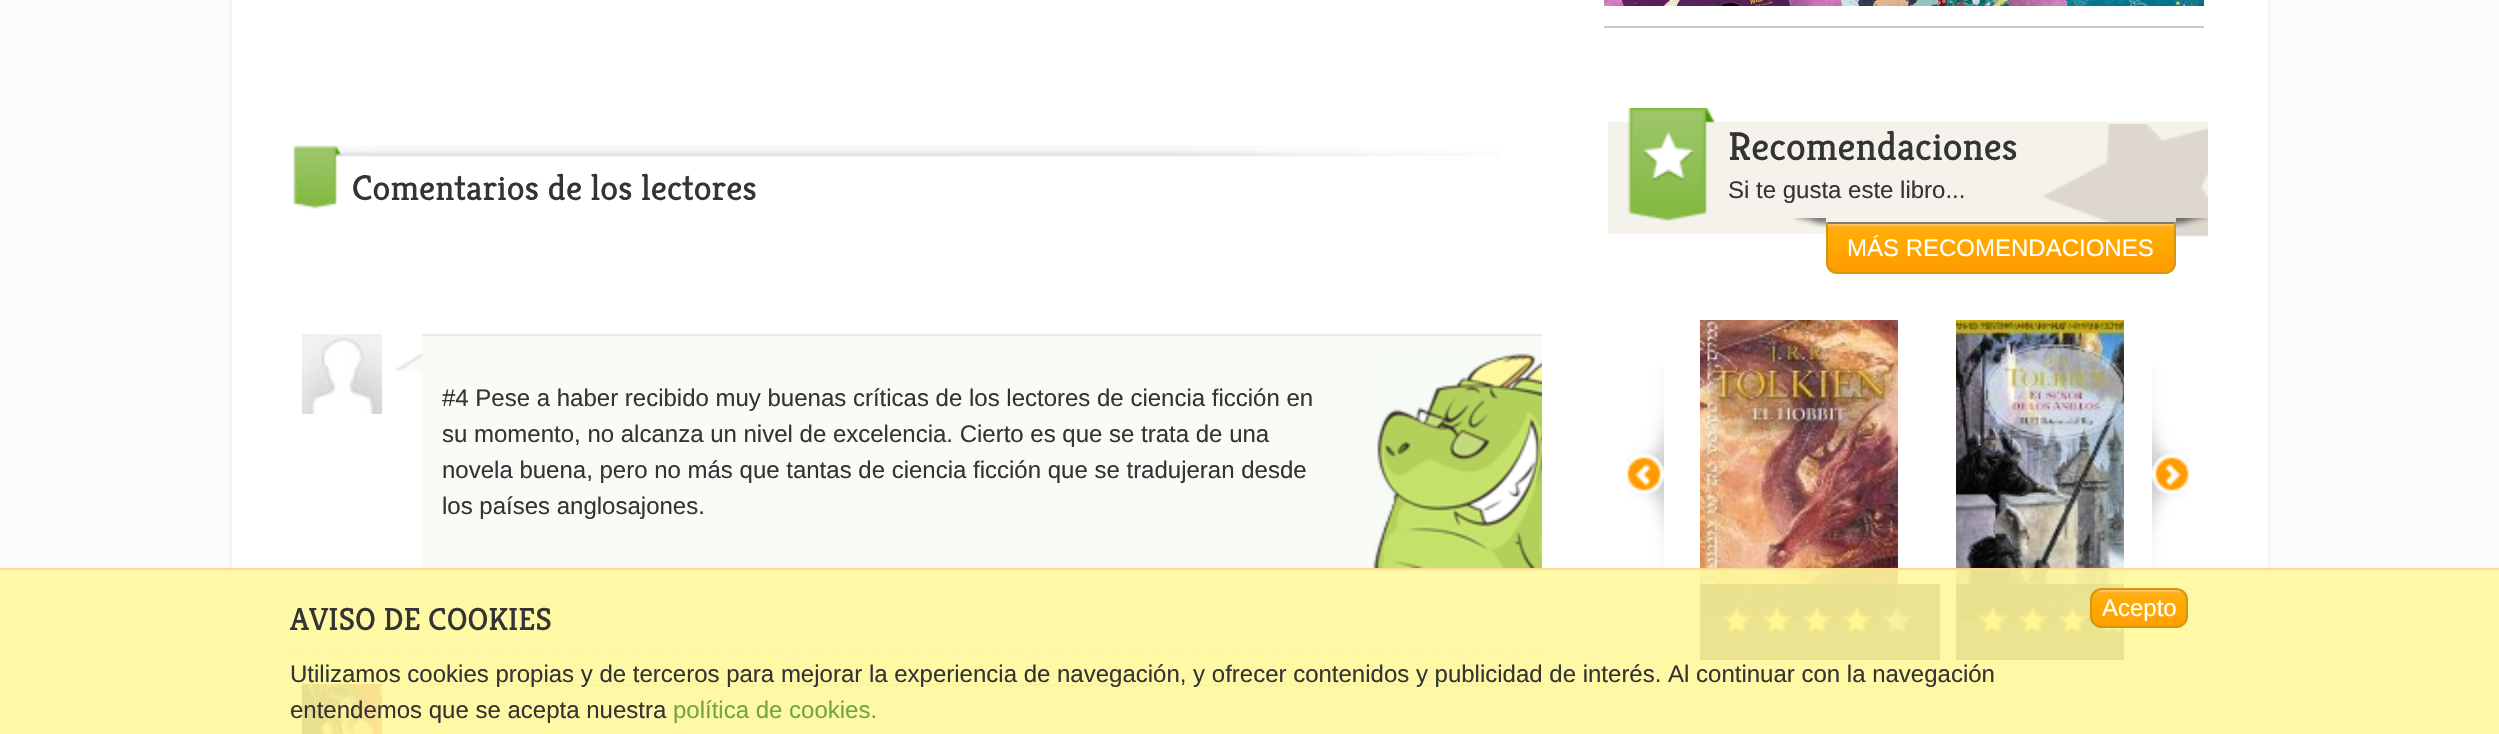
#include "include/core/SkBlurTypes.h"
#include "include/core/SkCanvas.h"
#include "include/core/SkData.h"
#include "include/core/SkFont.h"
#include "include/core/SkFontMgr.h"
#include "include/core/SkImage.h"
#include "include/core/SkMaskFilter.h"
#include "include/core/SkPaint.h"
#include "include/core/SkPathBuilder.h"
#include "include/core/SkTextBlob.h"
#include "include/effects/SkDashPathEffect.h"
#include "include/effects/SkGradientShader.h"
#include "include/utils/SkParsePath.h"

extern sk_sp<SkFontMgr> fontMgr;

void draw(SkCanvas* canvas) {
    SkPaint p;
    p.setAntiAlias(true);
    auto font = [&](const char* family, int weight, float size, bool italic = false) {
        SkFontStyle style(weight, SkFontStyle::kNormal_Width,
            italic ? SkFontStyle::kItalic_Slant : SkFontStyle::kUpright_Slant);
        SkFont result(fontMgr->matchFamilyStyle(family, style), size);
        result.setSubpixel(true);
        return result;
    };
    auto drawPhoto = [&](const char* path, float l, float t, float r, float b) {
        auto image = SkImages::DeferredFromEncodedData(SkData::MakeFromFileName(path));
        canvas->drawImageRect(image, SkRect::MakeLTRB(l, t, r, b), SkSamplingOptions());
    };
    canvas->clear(0xFFFBFBFB);
    {
        const struct { float l, t, r, b; SkColor color; } items[] = {
            {232, 0, 2268, 734, 0xFFFFFFFF},
            {2268, 0, 2270, 734, 0xFFF2F2F2},
            {230, 0, 232, 734, 0xFFF2F2F2},
            {1604, 26, 2204, 28, 0xFFC4CED7},
        };
        for (auto [l, t, r, b, color] : items) {
            p.setColor(color);
            canvas->drawRect(SkRect::MakeLTRB(l, t, r, b), p);
        }
    }
    drawPhoto("media/1.png", 1604, 0, 2204, 6);
    drawPhoto("media/2.png", 293, 145, 1500, 209);
    auto font1 = font("Kreon", 300, 36);
    p.setColor(0xFF343434);
    canvas->drawString("Comentarios de los lectores", 352, 200, font1, p);
    drawPhoto("media/3.png", 292, 652, 1552, 654);
    drawPhoto("media/4.png", 302, 334, 382, 414);
    drawPhoto("media/5.png", 395, 353, 422, 372);
    p.setColor(0xFFF8FBF6);
    canvas->drawRect(SkRect::MakeLTRB(422, 336, 1542, 568), p);
    drawPhoto("media/6.png", 1373, 353, 1542, 568);
    p.setColor(0xFFE5ECE0);
    canvas->drawRect(SkRect::MakeLTRB(422, 334, 1542, 336), p);
    auto font2 = font("Liberation Sans", 400, 24);
    p.setColor(0xFF343434);
    {
        const struct { const char* s; float x, y; } items[] = {
            {"#4 Pese a haber recibido muy buenas críticas de los lectores de ciencia ficción en", 442, 406},
            {"su momento, no alcanza un nivel de excelencia. Cierto es que se trata de una", 442, 442},
            {"novela buena, pero no más que tantas de ciencia ficción que se tradujeran desde", 442, 478},
            {"los países anglosajones.", 442, 514},
        };
        for (auto [s, x, y] : items) {
            canvas->drawString(s, x, y, font2, p);
        }
    }
    drawPhoto("media/7.png", 302, 684, 382, 734);
    drawPhoto("media/5.png", 395, 703, 422, 722);
    p.setColor(0xFFF9F9F9);
    canvas->drawRect(SkRect::MakeLTRB(422, 686, 1542, 734), p);
    p.setColor(0xFFD6D6D6);
    canvas->drawRect(SkRect::MakeLTRB(422, 684, 1542, 686), p);
    drawPhoto("media/8.png", 1608, 108, 2208, 234);
    drawPhoto("media/9.png", 1643, 131, 1694, 181);
    drawPhoto("media/10.png", 2008, 124, 2208, 237);
    auto font3 = font("Kreon", 300, 40);
    p.setColor(0xFF343434);
    canvas->drawString("Recomendaciones", 1728, 160, font3, p);
    canvas->drawString("Si te gusta este libro...", 1728, 198, font2, p);
    drawPhoto("media/11.png", 1794, 218, 1826, 228);
    drawPhoto("media/12.png", 2176, 218, 2208, 228);
    drawPhoto("media/13.png", 1826, 224, 2176, 274);
    p.setColor(0xFFFFFFFF);
    canvas->drawString("MÁS RECOMENDACIONES", 1847, 256, font2, p);
    p.setColor(0xFF7C7B78);
    canvas->drawPath(SkPathBuilder().moveTo(1826, 222).lineTo(1828, 224).lineTo(2174, 224).lineTo(2176, 222).close().detach(), p);
    p.setColor(0xFFD19912);
    canvas->drawPath(SkPathBuilder().moveTo(2176, 222).lineTo(2174, 224).lineTo(2174, 262).cubicTo(2174, 265, 2173, 268, 2171, 269).lineTo(2173, 271).cubicTo(2175, 268, 2176, 266, 2176, 262).close().detach(), p);
    canvas->drawPath(SkPathBuilder().moveTo(1838, 274).lineTo(2164, 274).cubicTo(2168, 274, 2170, 273, 2173, 271).lineTo(2171, 269).cubicTo(2170, 271, 2167, 272, 2164, 272).lineTo(1838, 272).cubicTo(1835, 272, 1832, 271, 1831, 269).lineTo(1829, 271).cubicTo(1832, 273, 1834, 274, 1838, 274).close().detach(), p);
    canvas->drawPath(SkPathBuilder().moveTo(1828, 224).lineTo(1826, 222).lineTo(1826, 262).cubicTo(1826, 266, 1827, 268, 1829, 271).lineTo(1831, 269).cubicTo(1829, 268, 1828, 265, 1828, 262).close().detach(), p);
    drawPhoto("media/14.png", 1627, 367, 1664, 581);
    drawPhoto("media/15.png", 1700, 320, 1898, 620);
    p.setColor(0xD9000000);
    canvas->drawRect(SkRect::MakeLTRB(1700, 584, 1940, 660), p);
    drawPhoto("media/16.png", 1720, 604, 1913, 636);
    drawPhoto("media/17.png", 1956, 320, 2124, 620);
    canvas->drawRect(SkRect::MakeLTRB(1956, 584, 2124, 660), p);
    drawPhoto("media/18.png", 1976, 604, 2124, 636);
    drawPhoto("media/19.png", 2152, 367, 2189, 581);
    p.setColor(0xE6FFF79B);
    canvas->drawRect(SkRect::MakeLTRB(0, 570, 2499, 734), p);
    p.setColor(0xFFFFDA96);
    canvas->drawRect(SkRect::MakeLTRB(0, 568, 2499, 570), p);
    drawPhoto("media/20.png", 2090, 590, 2188, 628);
    auto font4 = font("Kreon", 300, 32);
    p.setColor(0xFF343434);
    canvas->drawString("AVISO DE COOKIES", 290, 630, font4, p);
    p.setStyle(SkPaint::kStroke_Style);
    p.setStrokeWidth(2);
    p.setColor(0xFFD19912);
    canvas->drawRoundRect(SkRect::MakeLTRB(2091, 589, 2187, 627), 11, 11, p);
    p.setStyle(SkPaint::kFill_Style);
    p.setColor(0xFFFFFFFF);
    canvas->drawString("Acepto", 2102, 616, font2, p);
    p.setColor(0xFF343434);
    canvas->drawString("Utilizamos cookies propias y de terceros para mejorar la experiencia de navegación, y ofrecer contenidos y publicidad de interés. Al continuar con la navegación", 290, 682, font2, p);
    canvas->drawString("entendemos que se acepta nuestra", 290, 718, font2, p);
    p.setColor(0xFF70A83B);
    canvas->drawString("política de cookies.", 673, 718, font2, p);
}
